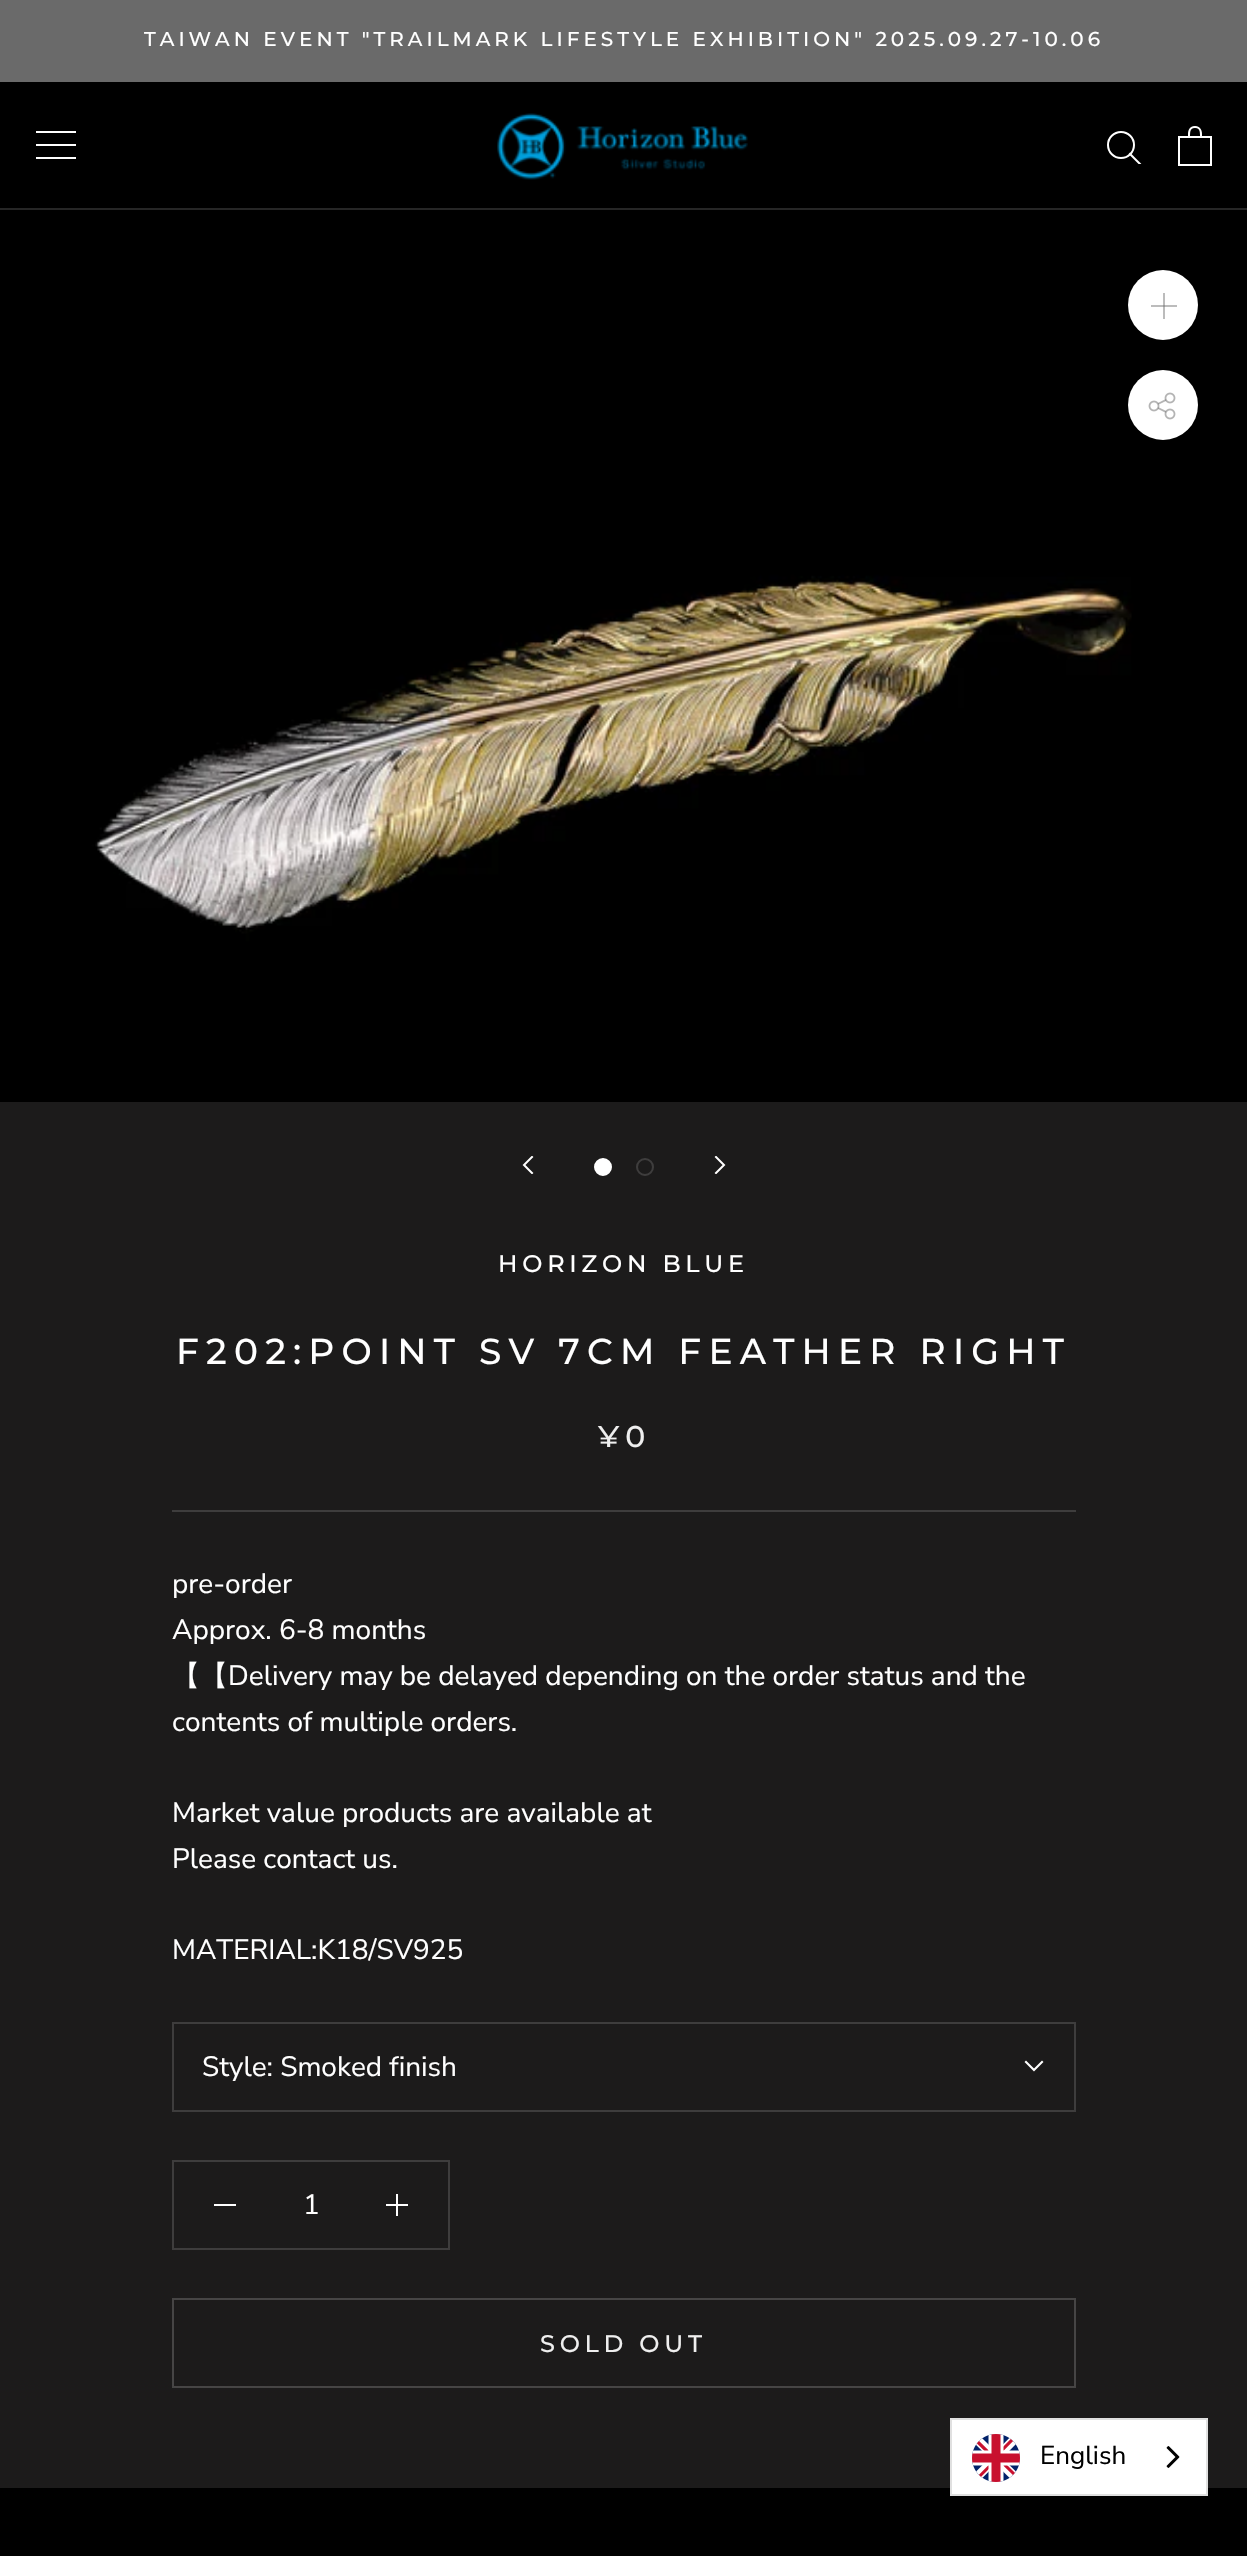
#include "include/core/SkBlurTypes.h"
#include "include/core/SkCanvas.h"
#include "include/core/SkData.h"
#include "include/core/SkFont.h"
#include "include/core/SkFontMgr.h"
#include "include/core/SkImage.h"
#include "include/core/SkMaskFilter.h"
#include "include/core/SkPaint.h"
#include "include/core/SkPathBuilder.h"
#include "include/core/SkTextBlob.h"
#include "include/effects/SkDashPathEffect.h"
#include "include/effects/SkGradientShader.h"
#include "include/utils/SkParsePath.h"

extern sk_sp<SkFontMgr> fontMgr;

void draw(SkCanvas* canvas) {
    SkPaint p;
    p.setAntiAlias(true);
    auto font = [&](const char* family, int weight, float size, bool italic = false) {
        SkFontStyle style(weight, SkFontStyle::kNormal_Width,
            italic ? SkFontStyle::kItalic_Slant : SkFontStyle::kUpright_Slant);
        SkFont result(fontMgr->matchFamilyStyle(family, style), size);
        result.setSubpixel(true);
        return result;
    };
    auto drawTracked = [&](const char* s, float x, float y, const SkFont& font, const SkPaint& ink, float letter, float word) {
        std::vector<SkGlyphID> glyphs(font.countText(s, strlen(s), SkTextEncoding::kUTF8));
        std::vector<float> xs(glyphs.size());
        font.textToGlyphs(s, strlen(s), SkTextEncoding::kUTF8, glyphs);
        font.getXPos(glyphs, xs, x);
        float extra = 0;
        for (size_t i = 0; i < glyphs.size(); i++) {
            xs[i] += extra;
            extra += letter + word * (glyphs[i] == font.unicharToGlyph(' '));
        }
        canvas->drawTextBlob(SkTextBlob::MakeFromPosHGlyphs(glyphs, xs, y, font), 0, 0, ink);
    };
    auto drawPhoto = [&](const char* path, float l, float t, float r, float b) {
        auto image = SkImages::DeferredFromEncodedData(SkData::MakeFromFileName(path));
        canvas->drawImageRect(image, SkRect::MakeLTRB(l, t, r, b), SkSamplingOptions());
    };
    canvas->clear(0xFF1C1B1B);
    p.setColor(0xFF6A6A6A);
    canvas->drawRect(SkRect::MakeLTRB(0, 0, 1247, 82), p);
    auto font1 = font("Montserrat", 500, 20);
    p.setColor(0xFFFFFFFF);
    drawTracked("TAIWAN EVENT \"TRAILMARK LIFESTYLE EXHIBITION\" 2025.09.27-10.06", 144, 46, font1, p, 4, 0);
    p.setColor(0xFF000000);
    canvas->drawRect(SkRect::MakeLTRB(0, 82, 1247, 208), p);
    p.setColor(0xFF262626);
    canvas->drawRect(SkRect::MakeLTRB(0, 208, 1247, 210), p);
    p.setColor(0xFFFFFFFF);
    canvas->drawPath(SkPathBuilder().moveTo(36, 159).lineTo(36, 157).lineTo(76, 157).lineTo(76, 159).close().moveTo(36, 144).lineTo(76, 144).lineTo(76, 146).lineTo(36, 146).close().moveTo(36, 131).lineTo(76, 131).lineTo(76, 133).lineTo(36, 133).close().detach(), p);
    drawPhoto("media/1.png", 497, 113, 748, 180);
    canvas->save();
    canvas->clipRect(SkRect::MakeLTRB(1106, 130, 1142, 164));
    p.setStyle(SkPaint::kStroke_Style);
    p.setStrokeWidth(2);
    p.setStrokeCap(SkPaint::kSquare_Cap);
    canvas->drawPath(SkPathBuilder().moveTo(1140, 164).lineTo(1130, 154).detach(), p);
    canvas->restore();
    p.setStrokeCap(SkPaint::kButt_Cap);
    canvas->drawCircle(1121, 145, 13, p);
    drawPhoto("media/2.png", 1178, 126, 1212, 166);
    drawPhoto("media/3.png", 0, 210, 1247, 1102);
    p.setStyle(SkPaint::kFill_Style);
    canvas->drawCircle(1163, 305, 35, p);
    p.setColor(0xFFBCBCBC);
    canvas->drawRect(SkRect::MakeLTRB(1163, 293, 1165, 319), p);
    p.setColor(0x736A6A6A);
    canvas->drawRect(SkRect::MakeLTRB(1151, 305, 1177, 307), p);
    p.setColor(0xFFFFFFFF);
    canvas->drawCircle(1163, 405, 35, p);
    drawPhoto("media/4.png", 1148, 392, 1176, 420);
    canvas->save();
    canvas->clipRect(SkRect::MakeLTRB(522, 1156, 534, 1174));
    p.setStyle(SkPaint::kStroke_Style);
    p.setStrokeCap(SkPaint::kSquare_Cap);
    canvas->drawPath(SkPathBuilder().moveTo(532, 1173).lineTo(524, 1165).lineTo(532, 1157).detach(), p);
    canvas->restore();
    p.setStyle(SkPaint::kFill_Style);
    canvas->drawCircle(603, 1167, 8, p);
    p.setStyle(SkPaint::kStroke_Style);
    p.setStrokeCap(SkPaint::kButt_Cap);
    canvas->drawCircle(603, 1167, 8, p);
    p.setColor(0xFF3E3D3D);
    canvas->drawCircle(645, 1167, 8, p);
    canvas->save();
    canvas->clipRect(SkRect::MakeLTRB(714, 1156, 726, 1174));
    p.setStrokeCap(SkPaint::kSquare_Cap);
    p.setColor(0xFFFFFFFF);
    canvas->drawPath(SkPathBuilder().moveTo(716, 1173).lineTo(724, 1165).lineTo(716, 1157).detach(), p);
    canvas->restore();
    p.setStyle(SkPaint::kFill_Style);
    p.setColor(0xFF3E3D3D);
    canvas->drawRect(SkRect::MakeLTRB(172, 1510, 1076, 1512), p);
    auto font2 = font("Montserrat", 500, 24);
    p.setColor(0xFFFFFFFF);
    drawTracked("HORIZON BLUE", 498, 1272, font2, p, 4.75f, 0);
    auto font3 = font("Montserrat", 500, 36);
    drawTracked("F202:POINT SV 7CM FEATHER RIGHT", 176, 1364, font3, p, 7.2f, 0);
    auto font4 = font("Montserrat", 500, 30);
    p.setColor(0xFFEFEFEF);
    drawTracked("¥0", 598, 1447, font4, p, 6, 0);
    auto font5 = font("Nunito Sans", 400, 28);
    p.setColor(0xFFFFFFFF);
    canvas->drawString("pre-order", 172, 1593, font5, p);
    canvas->drawString("Approx. 6-8 months", 172, 1639, font5, p);
    auto font6 = font("WenQuanYi Zen Hei", 500, 28);
    canvas->drawString("【【", 172, 1685, font6, p);
    {
        const struct { const char* s; float x, y; } items[] = {
            {"Delivery may be delayed depending on the order status and the", 228, 1685},
            {"contents of multiple orders.", 172, 1731},
            {"Market value products are available at", 172, 1822},
            {"Please contact us.", 172, 1868},
            {"MATERIAL:K18/SV925", 172, 1959},
        };
        for (auto [s, x, y] : items) {
            canvas->drawString(s, x, y, font5, p);
        }
    }
    p.setStyle(SkPaint::kStroke_Style);
    p.setStrokeCap(SkPaint::kButt_Cap);
    p.setColor(0xFF3E3D3D);
    canvas->drawRect(SkRect::MakeLTRB(173, 2023, 1075, 2111), p);
    p.setStyle(SkPaint::kFill_Style);
    p.setColor(0xFFFFFFFF);
    canvas->drawString("Style: Smoked finish", 202, 2076, font5, p);
    p.setStyle(SkPaint::kStroke_Style);
    p.setStrokeWidth(2.1f);
    p.setStrokeCap(SkPaint::kSquare_Cap);
    canvas->drawPath(SkPathBuilder().moveTo(1042, 2062).lineTo(1034, 2070).lineTo(1026, 2062).detach(), p);
    p.setStrokeWidth(2);
    p.setStrokeCap(SkPaint::kButt_Cap);
    p.setColor(0xFF3E3D3D);
    canvas->drawRect(SkRect::MakeLTRB(173, 2161, 449, 2249), p);
    p.setStyle(SkPaint::kFill_Style);
    p.setColor(0xFFFFFFFF);
    canvas->drawRect(SkRect::MakeLTRB(214, 2204, 236, 2206), p);
    canvas->drawString("1", 303, 2214, font5, p);
    canvas->drawRect(SkRect::MakeLTRB(396, 2194, 398, 2216), p);
    canvas->drawRect(SkRect::MakeLTRB(386, 2204, 408, 2206), p);
    p.setStyle(SkPaint::kStroke_Style);
    p.setColor(0xFF464545);
    canvas->drawRect(SkRect::MakeLTRB(173, 2299, 1075, 2387), p);
    p.setStyle(SkPaint::kFill_Style);
    p.setColor(0xFFEFEFEF);
    drawTracked("SOLD OUT", 540, 2352, font2, p, 4.75f, 0);
    p.setColor(0xFF000000);
    canvas->drawRect(SkRect::MakeLTRB(0, 2488, 1247, 2556), p);
    p.setColor(0xFFFFFFFF);
    canvas->drawRect(SkRect::MakeLTRB(951, 2419, 1207, 2495), p);
    p.setStyle(SkPaint::kStroke_Style);
    p.setColor(0xFFE0E0E0);
    canvas->drawRect(SkRect::MakeLTRB(951, 2419, 1207, 2495), p);
    drawPhoto("media/5.png", 972, 2434, 1020, 2482);
    auto font7 = font("Nunito Sans", 400, 26);
    p.setStyle(SkPaint::kFill_Style);
    p.setColor(0xFF000000);
    canvas->drawString("English", 1040, 2464, font7, p);
    drawPhoto("media/6.png", 1166, 2446, 1180, 2468);
}
